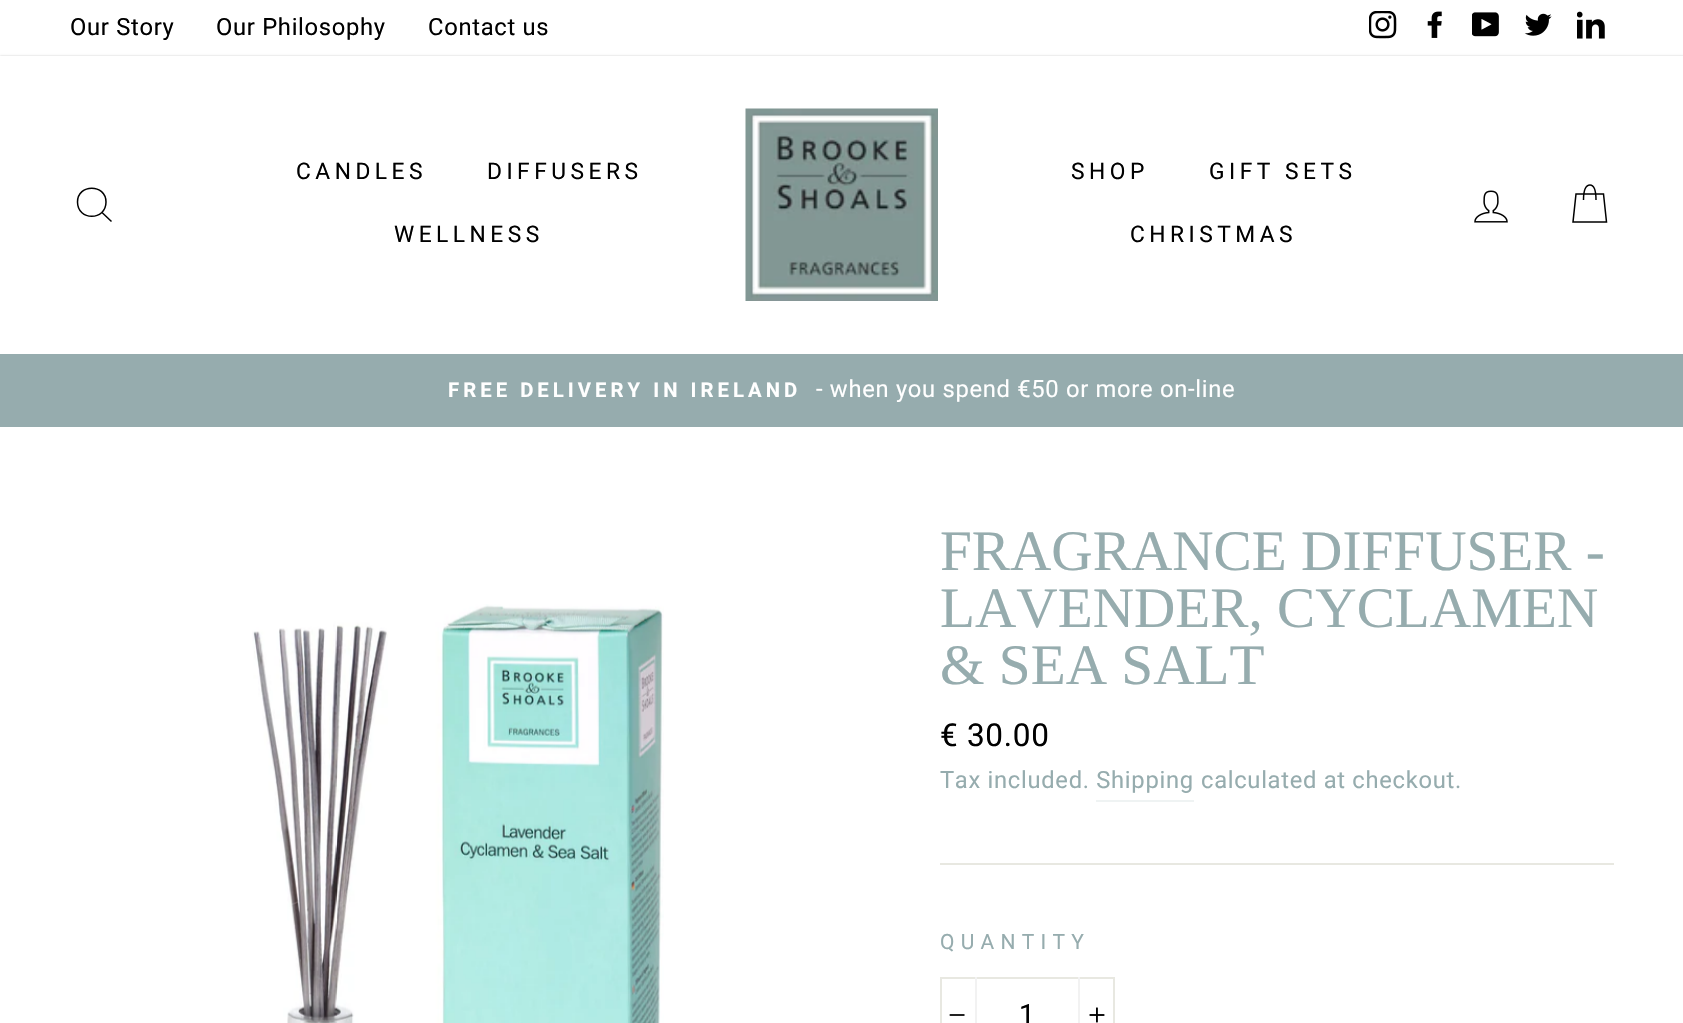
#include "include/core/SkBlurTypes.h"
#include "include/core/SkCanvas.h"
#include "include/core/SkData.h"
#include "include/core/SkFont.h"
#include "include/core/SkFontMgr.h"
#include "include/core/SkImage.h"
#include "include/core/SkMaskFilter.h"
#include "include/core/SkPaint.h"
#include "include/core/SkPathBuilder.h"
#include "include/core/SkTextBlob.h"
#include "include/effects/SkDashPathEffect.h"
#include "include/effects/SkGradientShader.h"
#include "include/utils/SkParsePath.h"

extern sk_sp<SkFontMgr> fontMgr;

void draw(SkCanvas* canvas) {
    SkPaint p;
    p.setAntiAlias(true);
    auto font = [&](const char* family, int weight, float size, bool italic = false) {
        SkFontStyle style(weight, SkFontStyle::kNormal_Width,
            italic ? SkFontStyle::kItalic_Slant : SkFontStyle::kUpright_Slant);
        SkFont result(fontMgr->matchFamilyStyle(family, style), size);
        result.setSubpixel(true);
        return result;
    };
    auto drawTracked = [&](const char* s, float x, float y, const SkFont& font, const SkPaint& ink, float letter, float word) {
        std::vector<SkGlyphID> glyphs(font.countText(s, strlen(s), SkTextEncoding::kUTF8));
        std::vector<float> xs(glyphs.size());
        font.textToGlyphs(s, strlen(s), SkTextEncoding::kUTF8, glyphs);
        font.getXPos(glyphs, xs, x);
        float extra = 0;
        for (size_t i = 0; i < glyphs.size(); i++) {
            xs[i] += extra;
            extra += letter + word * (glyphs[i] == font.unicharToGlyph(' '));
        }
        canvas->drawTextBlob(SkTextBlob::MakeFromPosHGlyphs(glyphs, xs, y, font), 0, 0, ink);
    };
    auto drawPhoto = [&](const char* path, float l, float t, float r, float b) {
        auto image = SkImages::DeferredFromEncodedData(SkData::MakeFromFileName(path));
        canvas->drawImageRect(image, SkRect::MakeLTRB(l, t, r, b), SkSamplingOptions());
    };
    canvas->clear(0xFFFFFFFF);
    auto font1 = font("Roboto", 400, 23.75f);
    p.setColor(0xFF000000);
    {
        const struct { const char* s; float x, y; } items[] = {
            {"Our Story", 70, 35},
            {"Our Philosophy", 216, 35},
            {"Contact us", 428, 35},
        };
        for (auto [s, x, y] : items) {
            drawTracked(s, x, y, font1, p, 0.7f, 0);
        }
    }
    drawPhoto("media/1.png", 1369, 11, 1397, 39);
    drawPhoto("media/2.png", 1427, 11, 1442, 38);
    drawPhoto("media/3.png", 1472, 12, 1499, 37);
    drawPhoto("media/4.png", 1524, 13, 1552, 36);
    drawPhoto("media/5.png", 1577, 11, 1605, 39);
    p.setColor(0x33000000);
    p.setMaskFilter(SkMaskFilter::MakeBlur(kNormal_SkBlurStyle, 1));
    canvas->drawRect(SkRect::MakeLTRB(0, 56, 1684, 354), p);
    p.setMaskFilter(nullptr);
    p.setColor(0xFFFFFFFF);
    canvas->drawRect(SkRect::MakeLTRB(0, 56, 1683, 354), p);
    p.setStyle(SkPaint::kStroke_Style);
    p.setStrokeWidth(1.5f);
    p.setColor(0xFF000000);
    canvas->drawPath(SkPathBuilder().moveTo(106, 202).cubicTo(106, 221, 77.5f, 221, 77.5f, 202).cubicTo(77.5f, 183.5f, 106, 183.5f, 106, 202).close().moveTo(111.5f, 221.5f).lineTo(102, 212.5f).detach(), p);
    auto font2 = font("Roboto", 400, 22.75f);
    p.setStyle(SkPaint::kFill_Style);
    {
        const struct { const char* s; float x, y; } items[] = {
            {"CANDLES", 296, 179},
            {"DIFFUSERS", 487, 179},
            {"WELLNESS", 394, 242},
        };
        for (auto [s, x, y] : items) {
            drawTracked(s, x, y, font2, p, 4.5f, 0);
        }
    }
    drawPhoto("media/6.png", 745, 108, 938, 301);
    {
        const struct { const char* s; float x, y; } items[] = {
            {"SHOP", 1071, 179},
            {"GIFT SETS", 1209, 179},
            {"CHRISTMAS", 1130, 242},
        };
        for (auto [s, x, y] : items) {
            drawTracked(s, x, y, font2, p, 4.5f, 0);
        }
    }
    drawPhoto("media/7.png", 1474, 190, 1508, 223);
    p.setStyle(SkPaint::kStroke_Style);
    canvas->drawPath(SkPathBuilder().moveTo(1583.5f, 200).cubicTo(1583.5f, 188, 1586.5f, 185, 1590, 185).cubicTo(1593, 185, 1596, 188, 1596, 200).moveTo(1576, 194).lineTo(1603.5f, 194).lineTo(1606.5f, 222).lineTo(1573, 222).close().detach(), p);
    p.setStyle(SkPaint::kFill_Style);
    p.setColor(0xFF96ACAE);
    canvas->drawRect(SkRect::MakeLTRB(0, 354, 1683, 427), p);
    auto font3 = font("Roboto", 700, 20.25f);
    p.setColor(0xFFFFFFFF);
    drawTracked("FREE DELIVERY IN IRELAND", 448, 397, font3, p, 4.05f, 0);
    drawTracked("- when you spend €50 or more on-line", 816, 397, font1, p, 0.7f, 0);
    drawPhoto("media/8.png", 252, 604, 664, 1023);
    auto font4 = font("Liberation Serif", 400, 57.25f);
    p.setColor(0xFF96ACAE);
    {
        const struct { const char* s; float x, y; } items[] = {
            {"FRAGRANCE DIFFUSER -", 940, 570},
            {"LAVENDER, CYCLAMEN", 940, 627},
            {"& SEA SALT", 940, 684},
        };
        for (auto [s, x, y] : items) {
            canvas->drawString(s, x, y, font4, p);
        }
    }
    auto font5 = font("Roboto", 400, 31.5f);
    p.setColor(0xFF000000);
    drawTracked("€ 30.00", 940, 746, font5, p, 0.7f, 0);
    p.setColor(0xFF96ACAE);
    drawTracked("Tax included. Shipping", 940, 788, font1, p, 0.7f, 0);
    drawTracked("calculated at checkout.", 1201, 788, font1, p, 0.7f, 0);
    p.setColor(0xFFEFF3F3);
    canvas->drawRect(SkRect::MakeLTRB(1096, 800, 1194, 802), p);
    p.setColor(0xFFE8E8E1);
    canvas->drawRect(SkRect::MakeLTRB(940, 863, 1614, 865), p);
    auto font6 = font("Roboto", 400, 21);
    p.setColor(0xFF96ACAE);
    drawTracked("QUANTITY", 940, 949, font6, p, 6.25f, 0);
    p.setStyle(SkPaint::kStroke_Style);
    p.setStrokeWidth(2);
    p.setColor(0xFFE8E8E1);
    canvas->drawRect(SkRect::MakeLTRB(941, 978, 1114, 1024), p);
    p.setStyle(SkPaint::kFill_Style);
    p.setColor(0xFFF2F2F2);
    canvas->drawRect(SkRect::MakeLTRB(975, 977, 977, 1023), p);
    drawPhoto("media/9.png", 949, 1014, 965, 1016);
    auto font7 = font("Roboto", 400, 28);
    p.setColor(0xFF000000);
    drawTracked("1", 1019, 1024, font7, p, 0.7f, 0);
    p.setColor(0xFFF2F2F2);
    canvas->drawRect(SkRect::MakeLTRB(1078, 977, 1080, 1023), p);
    drawPhoto("media/10.png", 1089, 1007, 1105, 1023);
}
